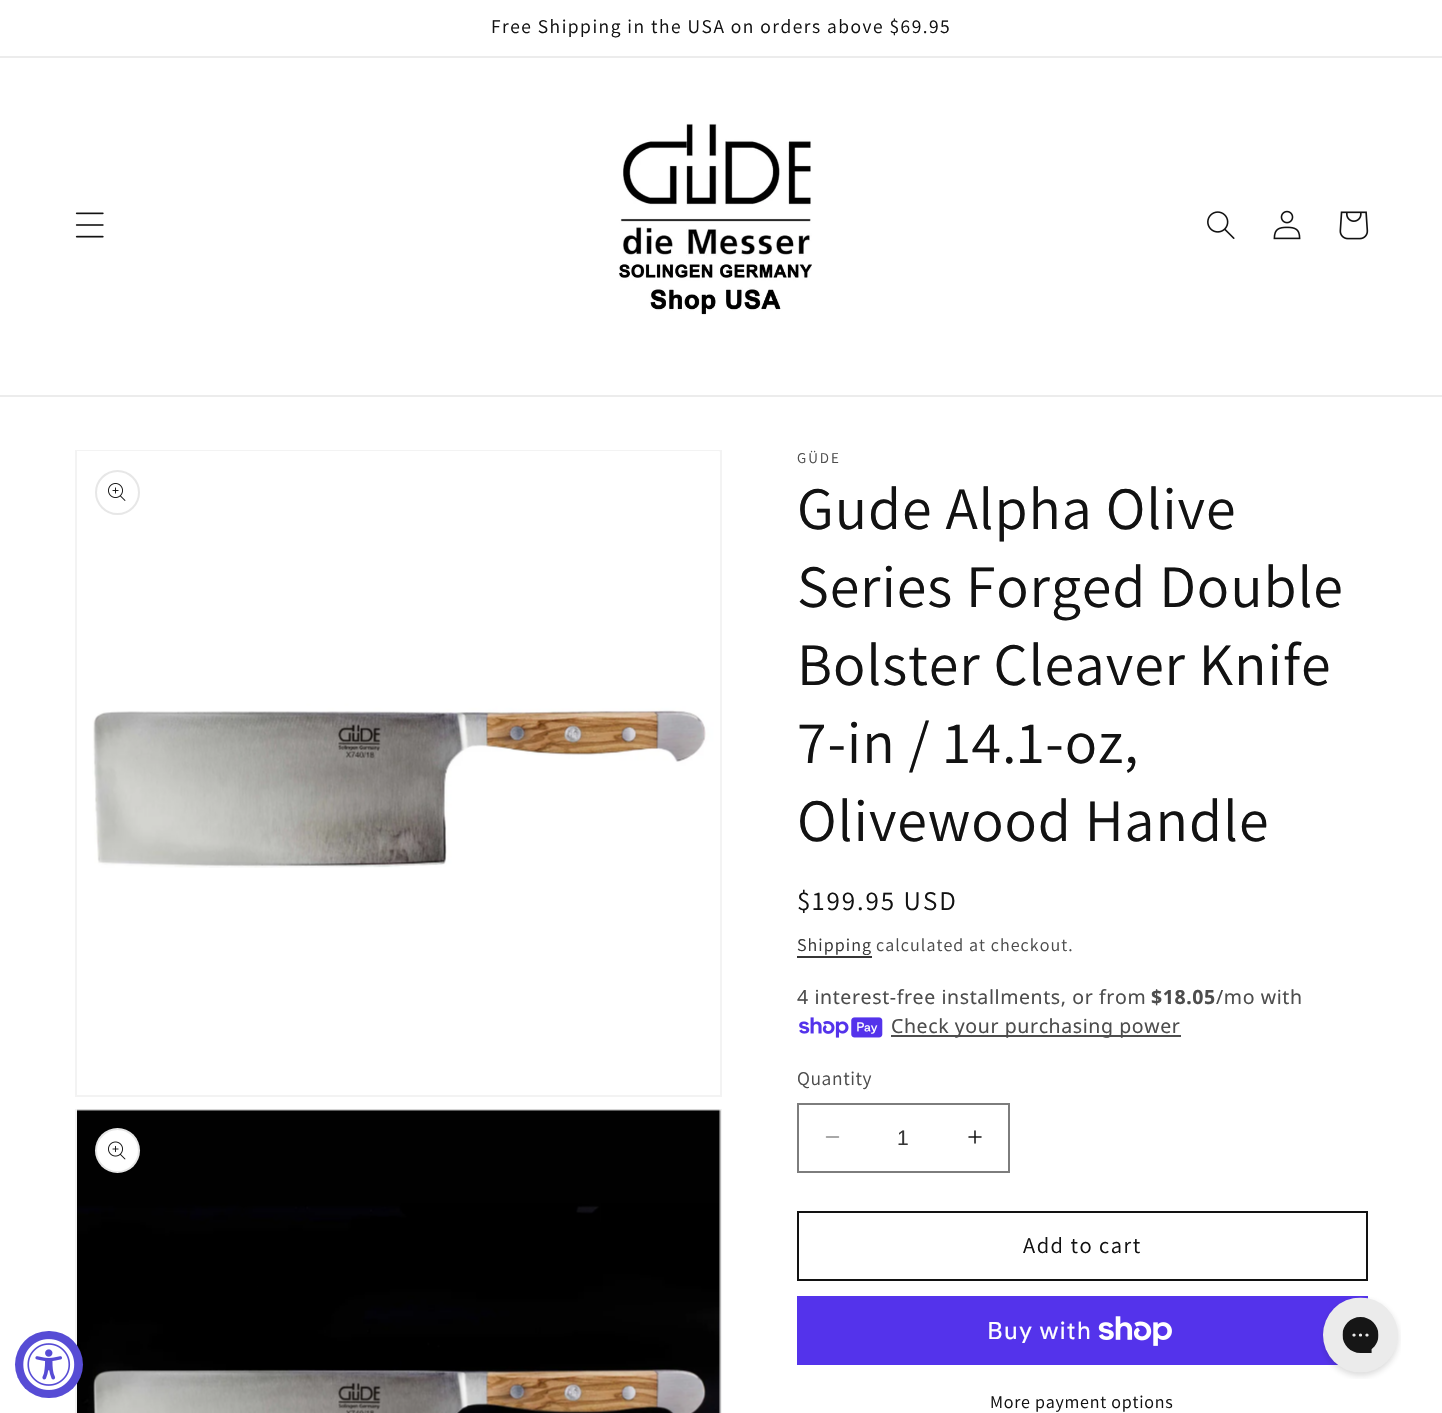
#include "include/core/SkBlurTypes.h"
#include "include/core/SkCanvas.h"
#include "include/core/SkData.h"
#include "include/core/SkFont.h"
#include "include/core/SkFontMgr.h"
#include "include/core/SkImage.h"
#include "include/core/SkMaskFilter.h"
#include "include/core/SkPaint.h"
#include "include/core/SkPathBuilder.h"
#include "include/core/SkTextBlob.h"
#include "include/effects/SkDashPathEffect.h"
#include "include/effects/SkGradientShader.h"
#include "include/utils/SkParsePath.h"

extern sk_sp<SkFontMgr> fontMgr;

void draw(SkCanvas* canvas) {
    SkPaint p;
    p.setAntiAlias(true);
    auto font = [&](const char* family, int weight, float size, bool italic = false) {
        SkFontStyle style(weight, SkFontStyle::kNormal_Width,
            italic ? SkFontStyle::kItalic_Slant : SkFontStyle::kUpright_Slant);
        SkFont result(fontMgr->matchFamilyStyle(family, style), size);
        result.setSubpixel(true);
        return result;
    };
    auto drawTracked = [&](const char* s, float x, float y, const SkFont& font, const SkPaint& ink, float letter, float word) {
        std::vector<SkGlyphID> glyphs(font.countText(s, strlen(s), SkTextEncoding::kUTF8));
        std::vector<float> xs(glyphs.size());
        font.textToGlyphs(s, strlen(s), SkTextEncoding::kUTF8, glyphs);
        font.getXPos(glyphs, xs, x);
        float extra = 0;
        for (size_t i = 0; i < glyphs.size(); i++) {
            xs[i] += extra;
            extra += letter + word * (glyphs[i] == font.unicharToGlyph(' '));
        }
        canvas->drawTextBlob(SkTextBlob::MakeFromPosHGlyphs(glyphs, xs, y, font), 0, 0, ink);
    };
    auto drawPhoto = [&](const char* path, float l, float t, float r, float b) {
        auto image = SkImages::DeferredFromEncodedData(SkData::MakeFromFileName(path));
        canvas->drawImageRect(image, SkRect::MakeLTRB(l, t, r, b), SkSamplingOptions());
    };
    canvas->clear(0xFFFFFFFF);
    p.setColor(0xFFECECEC);
    canvas->drawRect(SkRect::MakeLTRB(0, 56, 1442, 58), p);
    auto font1 = font("Assistant", 400, 19.5f);
    p.setColor(0xFF121212);
    drawTracked("Free Shipping in the USA on orders above $69.95", 491, 33, font1, p, 1.5f, 0);
    p.setColor(0xFFECECEC);
    canvas->drawRect(SkRect::MakeLTRB(0, 395, 1442, 397), p);
    drawPhoto("media/1.png", 75, 212, 104, 238);
    drawPhoto("media/2.png", 618, 123, 812, 315);
    drawPhoto("media/3.png", 1207, 211, 1235, 239);
    drawPhoto("media/4.png", 1273, 210, 1301, 240);
    drawPhoto("media/5.png", 1339, 211, 1369, 240);
    p.setStyle(SkPaint::kStroke_Style);
    p.setStrokeWidth(2);
    p.setColor(0xFFF3F3F3);
    canvas->drawRect(SkRect::MakeLTRB(76, 1110, 721, 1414), p);
    drawPhoto("media/9.png", 77, 1109, 721, 1413);
    p.setStyle(SkPaint::kFill_Style);
    p.setColor(0xFF574CD5);
    canvas->drawRoundRect(SkRect::MakeLTRB(15, 1331, 83, 1398), 33.5f, 33.5f, p);
    drawPhoto("media/6.png", 23, 1339, 75, 1390);
    p.setStyle(SkPaint::kStroke_Style);
    p.setColor(0xFFF3F3F3);
    canvas->drawRect(SkRect::MakeLTRB(76, 451, 721, 1096), p);
    drawPhoto("media/7.png", 77, 451, 720, 868);
    p.setColor(0xFFE7E7E7);
    canvas->drawCircle(117.5f, 492.5f, 21.5f, p);
    drawPhoto("media/8.png", 108, 483, 126, 501);
    p.setStyle(SkPaint::kFill_Style);
    p.setColor(0xFFFFFFFF);
    canvas->drawCircle(117.5f, 1150.5f, 22.5f, p);
    p.setStyle(SkPaint::kStroke_Style);
    p.setColor(0x1A121212);
    canvas->drawCircle(117.5f, 1150.5f, 21.5f, p);
    drawPhoto("media/10.png", 108, 1141, 126, 1160);
    auto font2 = font("Assistant", 400, 15);
    p.setStyle(SkPaint::kFill_Style);
    p.setColor(0xFF4D4D4D);
    drawTracked("GÜDE", 797, 463, font2, p, 2, 0);
    auto font3 = font("Assistant", 400, 60);
    p.setColor(0xFF121212);
    {
        const struct { const char* s; float x, y; } items[] = {
            {"Gude Alpha Olive", 797, 529},
            {"Series Forged Double", 797, 607},
            {"Bolster Cleaver Knife", 797, 685},
            {"7-in / 14.1-oz,", 797, 763},
            {"Olivewood Handle", 797, 841},
        };
        for (auto [s, x, y] : items) {
            drawTracked(s, x, y, font3, p, 0.9f, 0);
        }
    }
    auto font4 = font("Assistant", 400, 27);
    drawTracked("$199.95 USD", 797, 910, font4, p, 2, 0);
    auto font5 = font("Assistant", 400, 18);
    p.setColor(0xFF363636);
    drawTracked("Shipping", 797, 951, font5, p, 1.05f, 0);
    canvas->drawRect(SkRect::MakeLTRB(797, 956, 872, 958), p);
    p.setColor(0xFF4D4D4D);
    drawTracked("calculated at checkout.", 876, 951, font5, p, 1.05f, 0);
    auto font6 = font("Noto Sans", 400, 19.5f);
    drawTracked("4 interest-free installments, or from", 797, 1004, font6, p, 0.6f, 0);
    auto font7 = font("Noto Sans", 700, 19.5f);
    drawTracked("$18.05", 1151, 1004, font7, p, 0.6f, 0);
    drawTracked("/mo with", 1216, 1004, font6, p, 0.6f, 0);
    drawPhoto("media/11.png", 799, 1017, 883, 1038);
    canvas->drawRect(SkRect::MakeLTRB(891, 1035, 1181, 1037), p);
    drawTracked("Check your purchasing power", 891, 1033, font6, p, 0.6f, 0);
    drawTracked("Quantity", 797, 1085, font1, p, 0.6f, 0);
    drawPhoto("media/12.png", 825, 1136, 840, 1138);
    drawPhoto("media/13.png", 968, 1130, 982, 1144);
    p.setStyle(SkPaint::kStroke_Style);
    p.setColor(0xFF7D7D7D);
    canvas->drawRect(SkRect::MakeLTRB(798, 1104, 1009, 1172), p);
    auto font8 = font("Liberation Sans", 400, 21);
    p.setStyle(SkPaint::kFill_Style);
    p.setColor(0xFF363636);
    canvas->drawString("1", 897, 1145, font8, p);
    p.setStyle(SkPaint::kStroke_Style);
    p.setColor(0xFF121212);
    canvas->drawRect(SkRect::MakeLTRB(798, 1212, 1367, 1280), p);
    auto font9 = font("Assistant", 400, 22.5f);
    p.setStyle(SkPaint::kFill_Style);
    drawTracked("Add to cart", 1023, 1253, font9, p, 1.5f, 0);
    p.setColor(0xFF5433EB);
    canvas->drawRect(SkRect::MakeLTRB(797, 1296, 1368, 1365), p);
    auto font10 = font("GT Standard", 400, 24);
    p.setColor(0xFFFFFFFF);
    drawTracked("Buy with", 987, 1339, font10, p, 0.9f, 0);
    drawPhoto("media/14.png", 1098, 1316, 1172, 1346);
    p.setColor(0xFF121212);
    drawTracked("More payment options", 990, 1408, font5, p, 0.75f, 0);
    drawPhoto("media/15.png", 1320, 1297, 1401, 1379);
}
